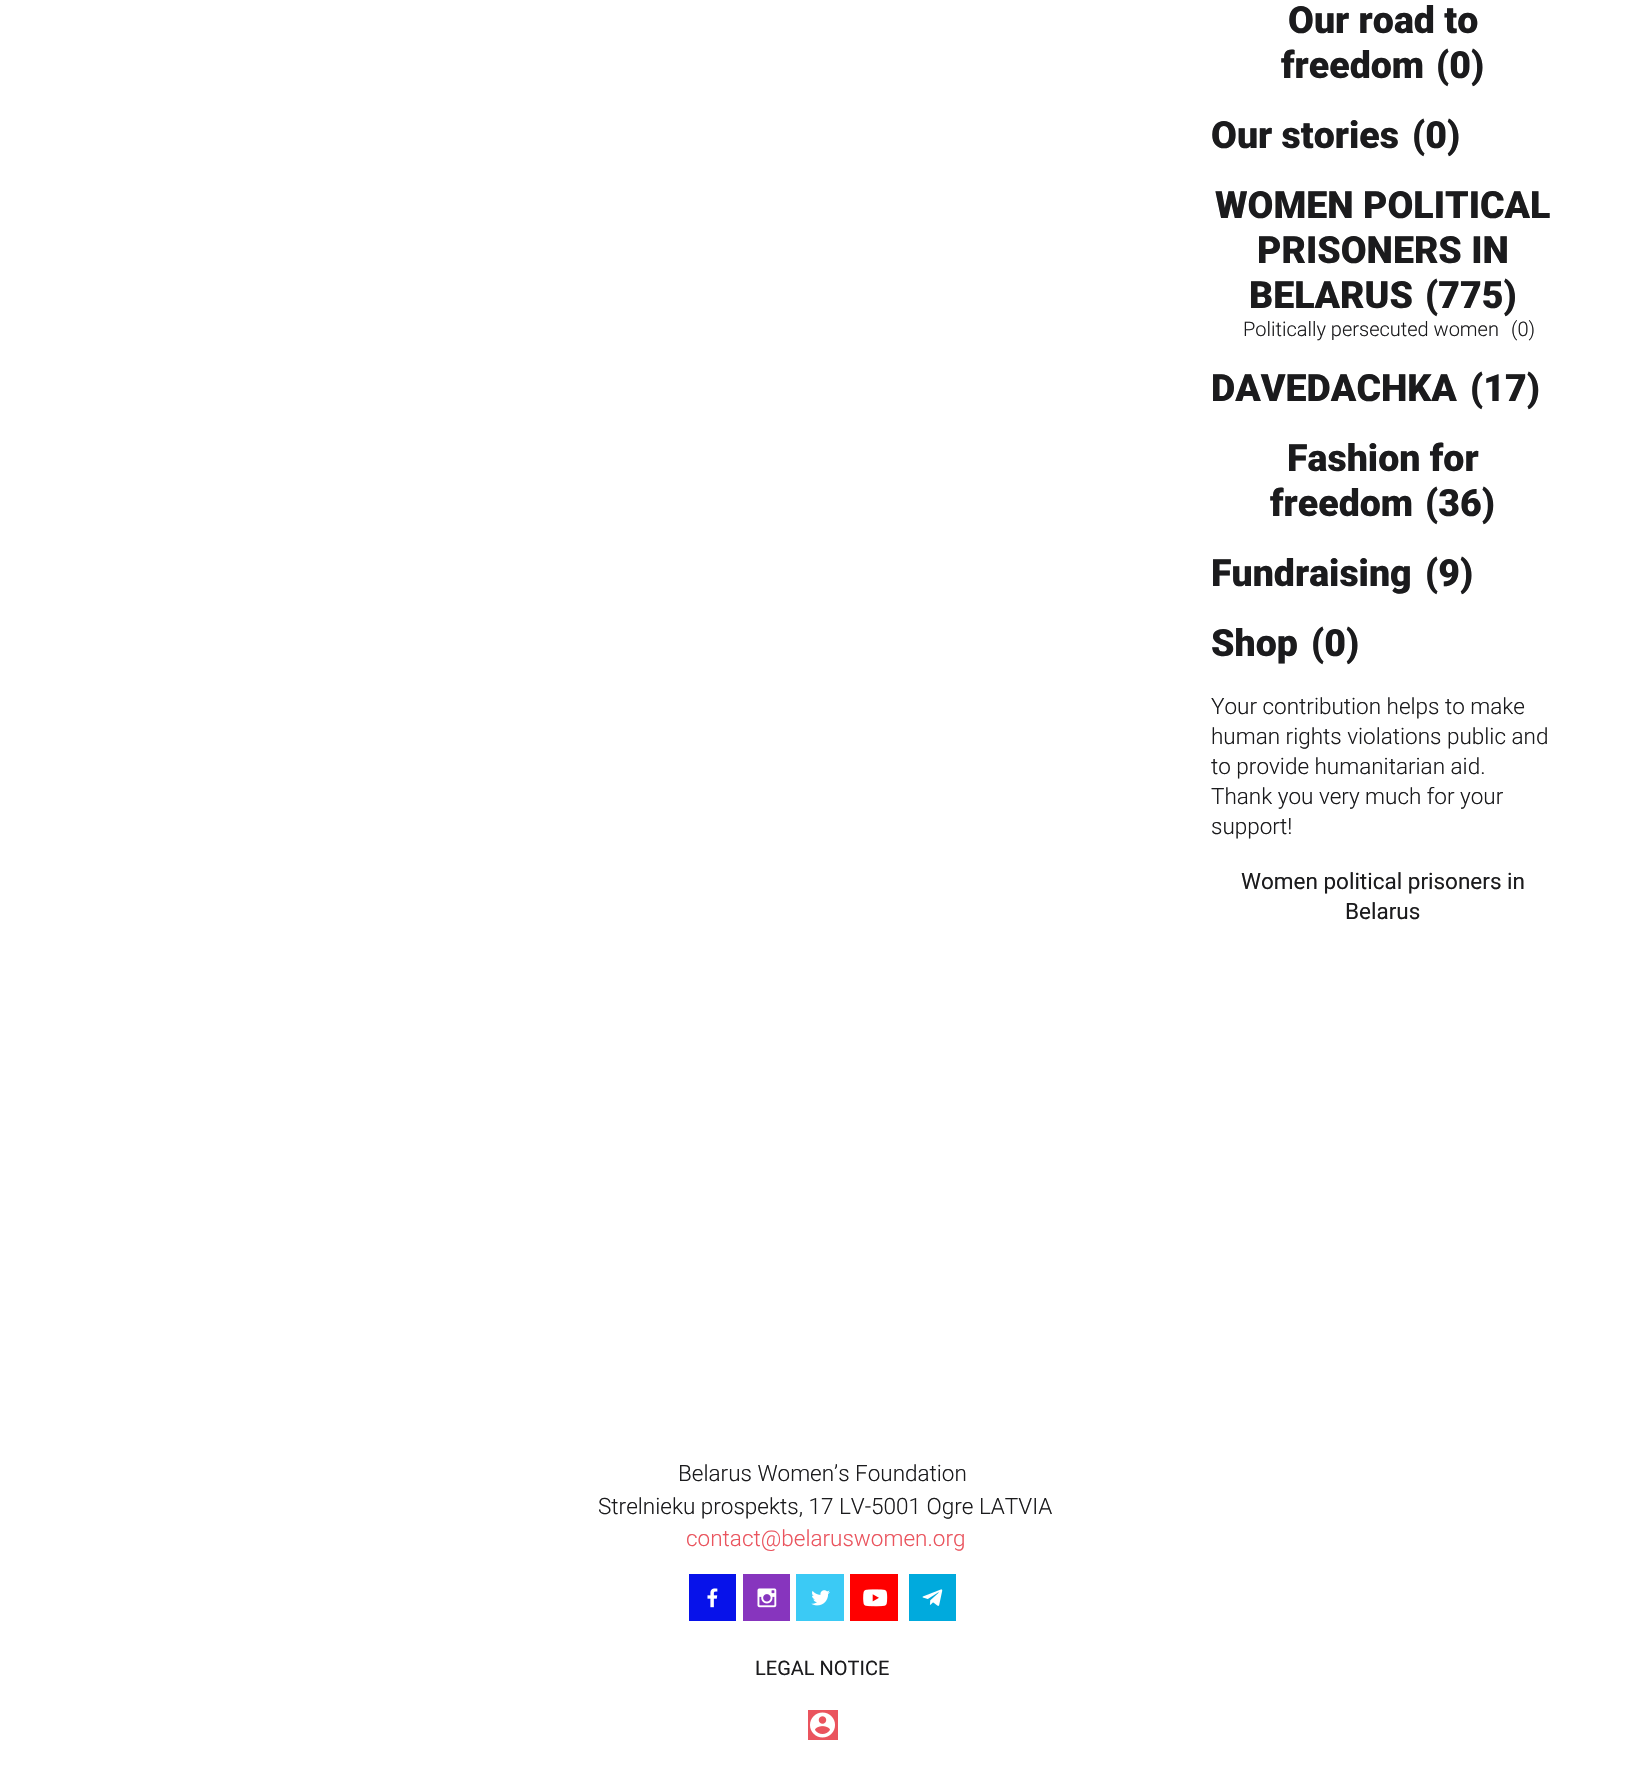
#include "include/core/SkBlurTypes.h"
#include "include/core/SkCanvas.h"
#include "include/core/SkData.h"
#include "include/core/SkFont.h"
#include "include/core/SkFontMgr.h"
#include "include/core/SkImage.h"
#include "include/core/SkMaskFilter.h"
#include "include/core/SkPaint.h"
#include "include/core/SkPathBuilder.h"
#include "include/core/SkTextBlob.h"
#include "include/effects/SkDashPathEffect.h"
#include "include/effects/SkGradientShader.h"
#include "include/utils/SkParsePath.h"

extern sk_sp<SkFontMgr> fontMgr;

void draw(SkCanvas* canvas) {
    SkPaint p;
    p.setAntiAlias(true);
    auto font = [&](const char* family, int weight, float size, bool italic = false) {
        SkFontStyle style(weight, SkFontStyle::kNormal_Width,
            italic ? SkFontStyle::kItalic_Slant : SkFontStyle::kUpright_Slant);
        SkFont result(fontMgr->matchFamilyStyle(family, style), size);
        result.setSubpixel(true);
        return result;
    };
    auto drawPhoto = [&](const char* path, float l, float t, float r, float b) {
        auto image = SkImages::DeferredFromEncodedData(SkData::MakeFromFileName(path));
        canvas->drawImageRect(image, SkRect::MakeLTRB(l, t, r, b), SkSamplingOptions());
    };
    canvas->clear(0xFFFFFFFF);
    auto font1 = font("Roboto", 900, 37.5f);
    p.setColor(0xFF1B1B1D);
    {
        const struct { const char* s; float x, y; } items[] = {
            {"Our road to", 1288, 33},
            {"freedom", 1281, 78},
            {"(0)", 1436, 78},
            {"Our stories", 1211, 148},
            {"(0)", 1412, 148},
            {"WOMEN POLITICAL", 1215, 218},
            {"PRISONERS IN", 1257, 263},
            {"BELARUS", 1249, 308},
            {"(775)", 1425, 308},
        };
        for (auto [s, x, y] : items) {
            canvas->drawString(s, x, y, font1, p);
        }
    }
    auto font2 = font("Roboto", 300, 20);
    canvas->drawString("Politically persecuted women", 1243, 336, font2, p);
    canvas->drawString("(0)", 1511, 336, font2, p);
    {
        const struct { const char* s; float x, y; } items[] = {
            {"DAVEDACHKA", 1211, 401},
            {"(17)", 1470, 401},
            {"Fashion for", 1287, 471},
            {"freedom", 1270, 516},
            {"(36)", 1425, 516},
            {"Fundraising", 1211, 586},
            {"(9)", 1425, 586},
            {"Shop", 1211, 656},
            {"(0)", 1311, 656},
        };
        for (auto [s, x, y] : items) {
            canvas->drawString(s, x, y, font1, p);
        }
    }
    auto font3 = font("Roboto", 300, 22.5f);
    {
        const struct { const char* s; float x, y; } items[] = {
            {"Your contribution helps to make", 1211, 714},
            {"human rights violations public and", 1211, 744},
            {"to provide humanitarian aid.", 1211, 774},
            {"Thank you very much for your", 1211, 804},
            {"support!", 1211, 834},
        };
        for (auto [s, x, y] : items) {
            canvas->drawString(s, x, y, font3, p);
        }
    }
    auto font4 = font("Roboto", 400, 22.5f);
    canvas->drawString("Women political prisoners in", 1241, 889, font4, p);
    canvas->drawString("Belarus", 1345, 919, font4, p);
    canvas->drawString("Belarus Women’s Foundation", 678, 1481, font3, p);
    canvas->drawString("Strelnieku prospekts, 17 LV-5001 Ogre LATVIA", 598, 1514, font3, p);
    p.setColor(0xFFEA545E);
    canvas->drawString("contact@belaruswomen.org", 686, 1546, font3, p);
    p.setColor(0xFF0712EA);
    canvas->drawRect(SkRect::MakeLTRB(689, 1574, 736, 1621), p);
    drawPhoto("media/1.png", 707, 1588, 718, 1608);
    p.setColor(0xFF8735BE);
    canvas->drawRect(SkRect::MakeLTRB(743, 1574, 790, 1621), p);
    drawPhoto("media/2.png", 757, 1588, 777, 1608);
    p.setColor(0xFF3BCAF5);
    canvas->drawRect(SkRect::MakeLTRB(796, 1574, 844, 1621), p);
    drawPhoto("media/3.png", 811, 1590, 830, 1606);
    p.setColor(0xFFFF0000);
    canvas->drawRect(SkRect::MakeLTRB(850, 1574, 898, 1621), p);
    drawPhoto("media/4.png", 863, 1589, 888, 1607);
    p.setColor(0xFF00AADD);
    canvas->drawRect(SkRect::MakeLTRB(909, 1574, 956, 1621), p);
    drawPhoto("media/5.png", 922, 1589, 943, 1606);
    auto font5 = font("Roboto", 400, 20);
    p.setColor(0xFF1B1B1D);
    canvas->drawString("LEGAL NOTICE", 755, 1675, font5, p);
    p.setColor(0xFFEA545E);
    canvas->drawRect(SkRect::MakeLTRB(808, 1710, 838, 1740), p);
    drawPhoto("media/6.png", 810, 1712, 835, 1738);
}
